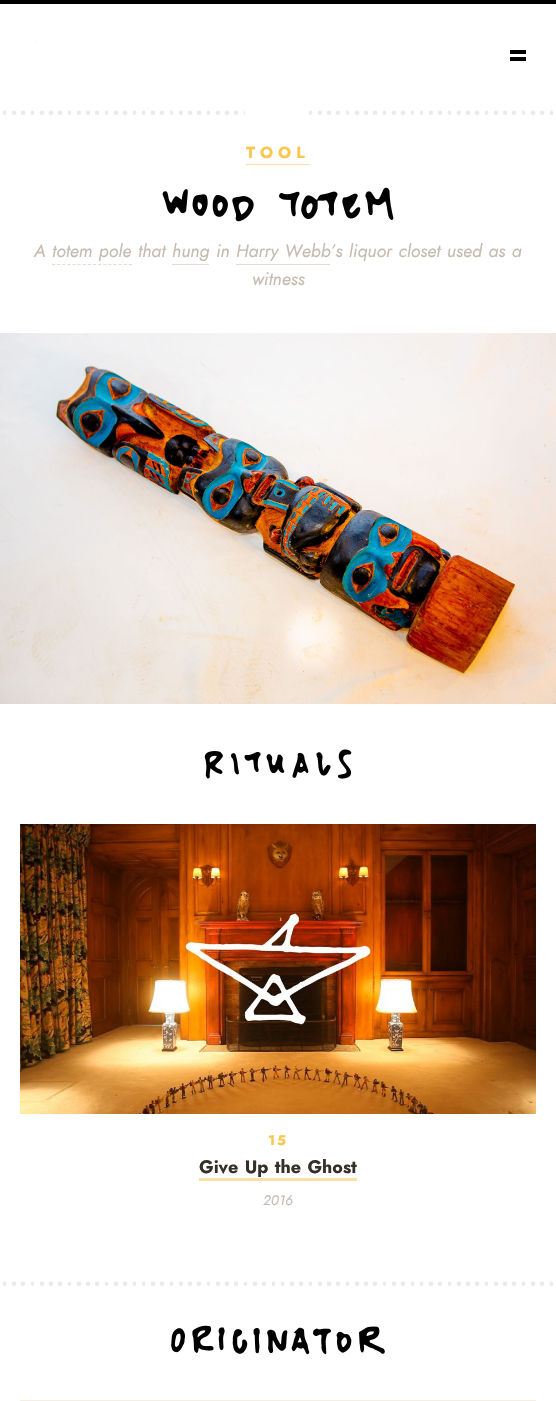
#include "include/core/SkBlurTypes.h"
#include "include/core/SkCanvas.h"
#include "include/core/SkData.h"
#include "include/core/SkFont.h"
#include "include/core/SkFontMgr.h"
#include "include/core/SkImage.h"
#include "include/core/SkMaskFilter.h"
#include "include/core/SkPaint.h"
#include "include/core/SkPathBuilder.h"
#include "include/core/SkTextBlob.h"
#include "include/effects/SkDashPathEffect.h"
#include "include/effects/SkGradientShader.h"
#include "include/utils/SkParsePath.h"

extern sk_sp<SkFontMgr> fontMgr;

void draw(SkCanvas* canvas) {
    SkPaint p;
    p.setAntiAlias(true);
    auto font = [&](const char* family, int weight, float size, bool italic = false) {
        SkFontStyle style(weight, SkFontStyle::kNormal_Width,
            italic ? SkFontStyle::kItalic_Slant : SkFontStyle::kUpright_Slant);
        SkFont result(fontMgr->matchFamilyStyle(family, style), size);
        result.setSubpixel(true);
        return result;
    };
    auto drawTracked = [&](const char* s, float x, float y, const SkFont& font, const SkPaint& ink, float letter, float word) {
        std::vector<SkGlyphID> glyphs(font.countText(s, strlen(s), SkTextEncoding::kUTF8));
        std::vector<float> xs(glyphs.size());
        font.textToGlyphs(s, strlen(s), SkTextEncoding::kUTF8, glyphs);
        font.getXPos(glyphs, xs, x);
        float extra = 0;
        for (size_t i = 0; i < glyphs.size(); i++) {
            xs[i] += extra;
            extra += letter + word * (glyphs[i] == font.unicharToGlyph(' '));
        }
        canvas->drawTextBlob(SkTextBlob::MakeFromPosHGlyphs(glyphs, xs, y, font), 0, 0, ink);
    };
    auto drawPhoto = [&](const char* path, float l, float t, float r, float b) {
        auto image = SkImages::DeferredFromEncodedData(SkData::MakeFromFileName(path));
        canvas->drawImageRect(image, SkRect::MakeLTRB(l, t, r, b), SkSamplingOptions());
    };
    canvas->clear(0xFFFFFFFF);
    {
        const struct { float l, t, r, b; SkColor color; } items[] = {
            {0, 0, 556, 4, 0xFF000000},
            {35, 40, 36, 41, 0xFFF2F2F2},
            {510, 50, 526, 54, 0xFF000000},
            {510, 57, 526, 61, 0xFF000000},
        };
        for (auto [l, t, r, b, color] : items) {
            p.setColor(color);
            canvas->drawRect(SkRect::MakeLTRB(l, t, r, b), p);
        }
    }
    drawPhoto("media/1.png", 2, 110, 554, 115);
    p.setColor(0xFFFFFFFF);
    canvas->drawRect(SkRect::MakeLTRB(245, 110, 304, 115), p);
    auto font1 = font("Jost", 700, 16);
    p.setColor(0xFFF9C74F);
    drawTracked("TOOL", 246, 158, font1, p, 5, 0);
    p.setColor(0xFFFADEA4);
    canvas->drawRect(SkRect::MakeLTRB(246, 164, 310, 165), p);
    drawPhoto("media/2.png", 162, 187, 394, 222);
    auto font2 = font("Jost", 400, 18, true);
    p.setColor(0xFFC6BBAF);
    canvas->drawString("A", 34, 257, font2, p);
    drawTracked("totem pole", 52, 257, font2, p, 0, 1);
    p.setStyle(SkPaint::kStroke_Style);
    p.setStrokeWidth(1);
    p.setColor(0xFFE2DCD1);
    p.setPathEffect(SkDashPathEffect::Make({{3, 2.13f}}, 0));
    canvas->drawPath(SkPathBuilder().moveTo(52, 264.5f).lineTo(132, 264.5f).detach(), p);
    p.setPathEffect(nullptr);
    p.setStyle(SkPaint::kFill_Style);
    p.setColor(0xFFC6BBAF);
    canvas->drawString("that", 138, 257, font2, p);
    canvas->drawString("hung", 172, 257, font2, p);
    p.setColor(0xFFE2DCD1);
    canvas->drawRect(SkRect::MakeLTRB(172, 264, 209, 265), p);
    p.setColor(0xFFC6BBAF);
    canvas->drawString("in", 216, 257, font2, p);
    drawTracked("Harry Webb’s liquor closet used as a", 236, 257, font2, p, 0, 1);
    p.setColor(0xFFE2DCD1);
    canvas->drawRect(SkRect::MakeLTRB(236, 264, 330, 265), p);
    p.setColor(0xFFC6BBAF);
    canvas->drawString("witness", 252, 285, font2, p);
    drawPhoto("media/3.png", 0, 333, 556, 704);
    drawPhoto("media/4.png", 204, 749, 352, 779);
    drawPhoto("media/5.png", 20, 824, 536, 1114);
    auto font3 = font("Jost", 700, 14);
    p.setColor(0xFFF9C74F);
    drawTracked("15", 268, 1145, font3, p, 2, 0);
    p.setColor(0xFFFADEA4);
    canvas->drawRect(SkRect::MakeLTRB(199, 1178, 357, 1181), p);
    auto font4 = font("Jost", 700, 18);
    p.setColor(0xFF353027);
    drawTracked("Give Up the Ghost", 199, 1173, font4, p, 0, 1);
    auto font5 = font("Jost", 400, 14, true);
    p.setColor(0xFFC6BBAF);
    canvas->drawString("2016", 263, 1205, font5, p);
    drawPhoto("media/1.png", 2, 1281, 554, 1286);
    drawPhoto("media/6.png", 171, 1325, 385, 1355);
    p.setColor(0xFFF5EEE3);
    canvas->drawRect(SkRect::MakeLTRB(20, 1400, 536, 1401), p);
}
